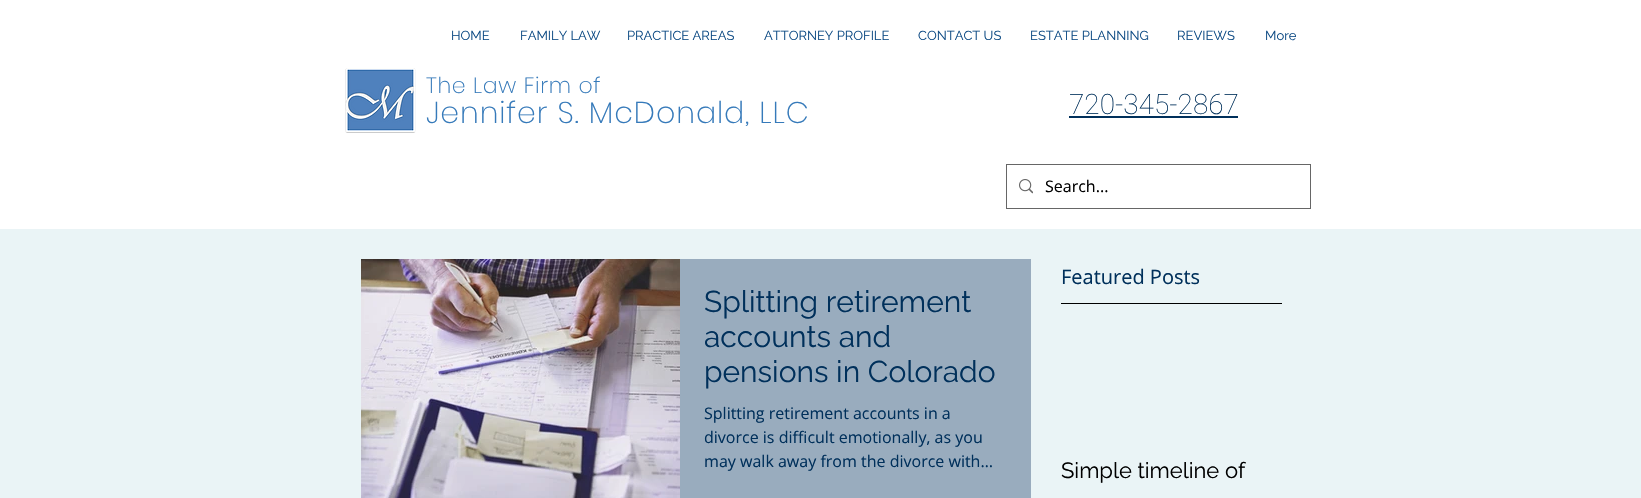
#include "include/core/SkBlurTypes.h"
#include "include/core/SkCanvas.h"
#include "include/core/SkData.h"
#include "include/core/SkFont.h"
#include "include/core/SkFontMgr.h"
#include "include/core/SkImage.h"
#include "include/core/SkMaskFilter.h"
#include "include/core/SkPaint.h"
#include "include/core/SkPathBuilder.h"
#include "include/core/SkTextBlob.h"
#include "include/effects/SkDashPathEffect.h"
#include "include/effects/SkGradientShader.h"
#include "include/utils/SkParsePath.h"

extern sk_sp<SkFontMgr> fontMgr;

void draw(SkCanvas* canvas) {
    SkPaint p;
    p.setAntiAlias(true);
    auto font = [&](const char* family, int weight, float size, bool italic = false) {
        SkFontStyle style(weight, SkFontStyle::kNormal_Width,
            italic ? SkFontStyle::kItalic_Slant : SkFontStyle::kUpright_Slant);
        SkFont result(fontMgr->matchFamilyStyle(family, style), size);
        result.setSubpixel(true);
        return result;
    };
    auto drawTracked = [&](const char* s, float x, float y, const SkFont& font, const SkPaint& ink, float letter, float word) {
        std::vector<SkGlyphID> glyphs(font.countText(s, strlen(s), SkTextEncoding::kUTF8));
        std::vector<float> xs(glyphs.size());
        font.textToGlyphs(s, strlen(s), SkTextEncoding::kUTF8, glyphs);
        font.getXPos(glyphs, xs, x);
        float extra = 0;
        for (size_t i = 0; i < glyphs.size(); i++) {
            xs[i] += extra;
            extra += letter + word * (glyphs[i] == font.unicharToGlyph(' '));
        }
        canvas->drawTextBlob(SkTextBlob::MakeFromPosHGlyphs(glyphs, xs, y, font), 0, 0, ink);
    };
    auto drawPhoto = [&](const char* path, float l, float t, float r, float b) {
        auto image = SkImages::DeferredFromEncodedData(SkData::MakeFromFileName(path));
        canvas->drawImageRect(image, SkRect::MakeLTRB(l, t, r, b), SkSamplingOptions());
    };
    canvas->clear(0xFFEAF4F6);
    p.setColor(0xFFFFFFFF);
    canvas->drawRect(SkRect::MakeLTRB(0, 0, 1641, 229), p);
    auto font1 = font("Raleway", 400, 13);
    p.setColor(0xFF0F4C85);
    {
        const struct { const char* s; float x, y; } items[] = {
            {"HOME", 451, 40},
            {"FAMILY LAW", 520, 40},
            {"PRACTICE AREAS", 627, 40},
            {"ATTORNEY PROFILE", 764, 40},
            {"CONTACT US", 918, 40},
            {"ESTATE PLANNING", 1030, 40},
            {"REVIEWS", 1177, 40},
            {"More", 1265, 40},
        };
        for (auto [s, x, y] : items) {
            canvas->drawString(s, x, y, font1, p);
        }
    }
    drawPhoto("media/1.png", 345, 68, 416, 133);
    auto font2 = font("Poppins", 200, 22);
    p.setColor(0xFF367ABA);
    drawTracked("The Law Firm of", 426, 93, font2, p, 0.7f, 0);
    auto font3 = font("Poppins", 200, 30);
    drawTracked("Jennifer S. McDonald, LLC", 426, 123, font3, p, 0.9f, 0);
    auto font4 = font("Roboto", 100, 28);
    p.setColor(0xFF00305B);
    canvas->drawString("720-345-2867", 1069, 114, font4, p);
    canvas->drawRect(SkRect::MakeLTRB(1069, 116, 1238, 118), p);
    p.setStyle(SkPaint::kStroke_Style);
    p.setStrokeWidth(1);
    p.setColor(0xFF666666);
    canvas->drawRect(SkRect::MakeLTRB(1006.5f, 164.5f, 1310.5f, 208.5f), p);
    drawPhoto("media/2.png", 1019, 179, 1033, 194);
    auto font5 = font("Open Sans", 400, 16);
    p.setStyle(SkPaint::kFill_Style);
    p.setColor(0xFF000000);
    canvas->drawString("Search...", 1045, 192, font5, p);
    auto font6 = font("Open Sans", 400, 20);
    p.setColor(0xFF00305B);
    canvas->drawString("Featured Posts", 1061, 284, font6, p);
    drawPhoto("media/3.png", 361, 259, 680, 498);
    p.setColor(0xFF99ACBE);
    canvas->drawRect(SkRect::MakeLTRB(680, 259, 1031, 498), p);
    auto font7 = font("Raleway", 400, 30);
    p.setColor(0xFF00305B);
    {
        const struct { const char* s; float x, y; } items[] = {
            {"Splitting retirement", 704, 312},
            {"accounts and", 704, 347},
            {"pensions in Colorado", 704, 382},
        };
        for (auto [s, x, y] : items) {
            canvas->drawString(s, x, y, font7, p);
        }
    }
    {
        const struct { const char* s; float x, y; } items[] = {
            {"Splitting retirement accounts in a", 704, 419},
            {"divorce is difficult emotionally, as you", 704, 443},
            {"may walk away from the divorce with…", 704, 467},
        };
        for (auto [s, x, y] : items) {
            canvas->drawString(s, x, y, font5, p);
        }
    }
    p.setColor(0xFF000000);
    canvas->drawRect(SkRect::MakeLTRB(1061, 303, 1282, 304), p);
    auto font8 = font("Raleway", 400, 22);
    canvas->drawString("Simple timeline of", 1061, 478, font8, p);
}
